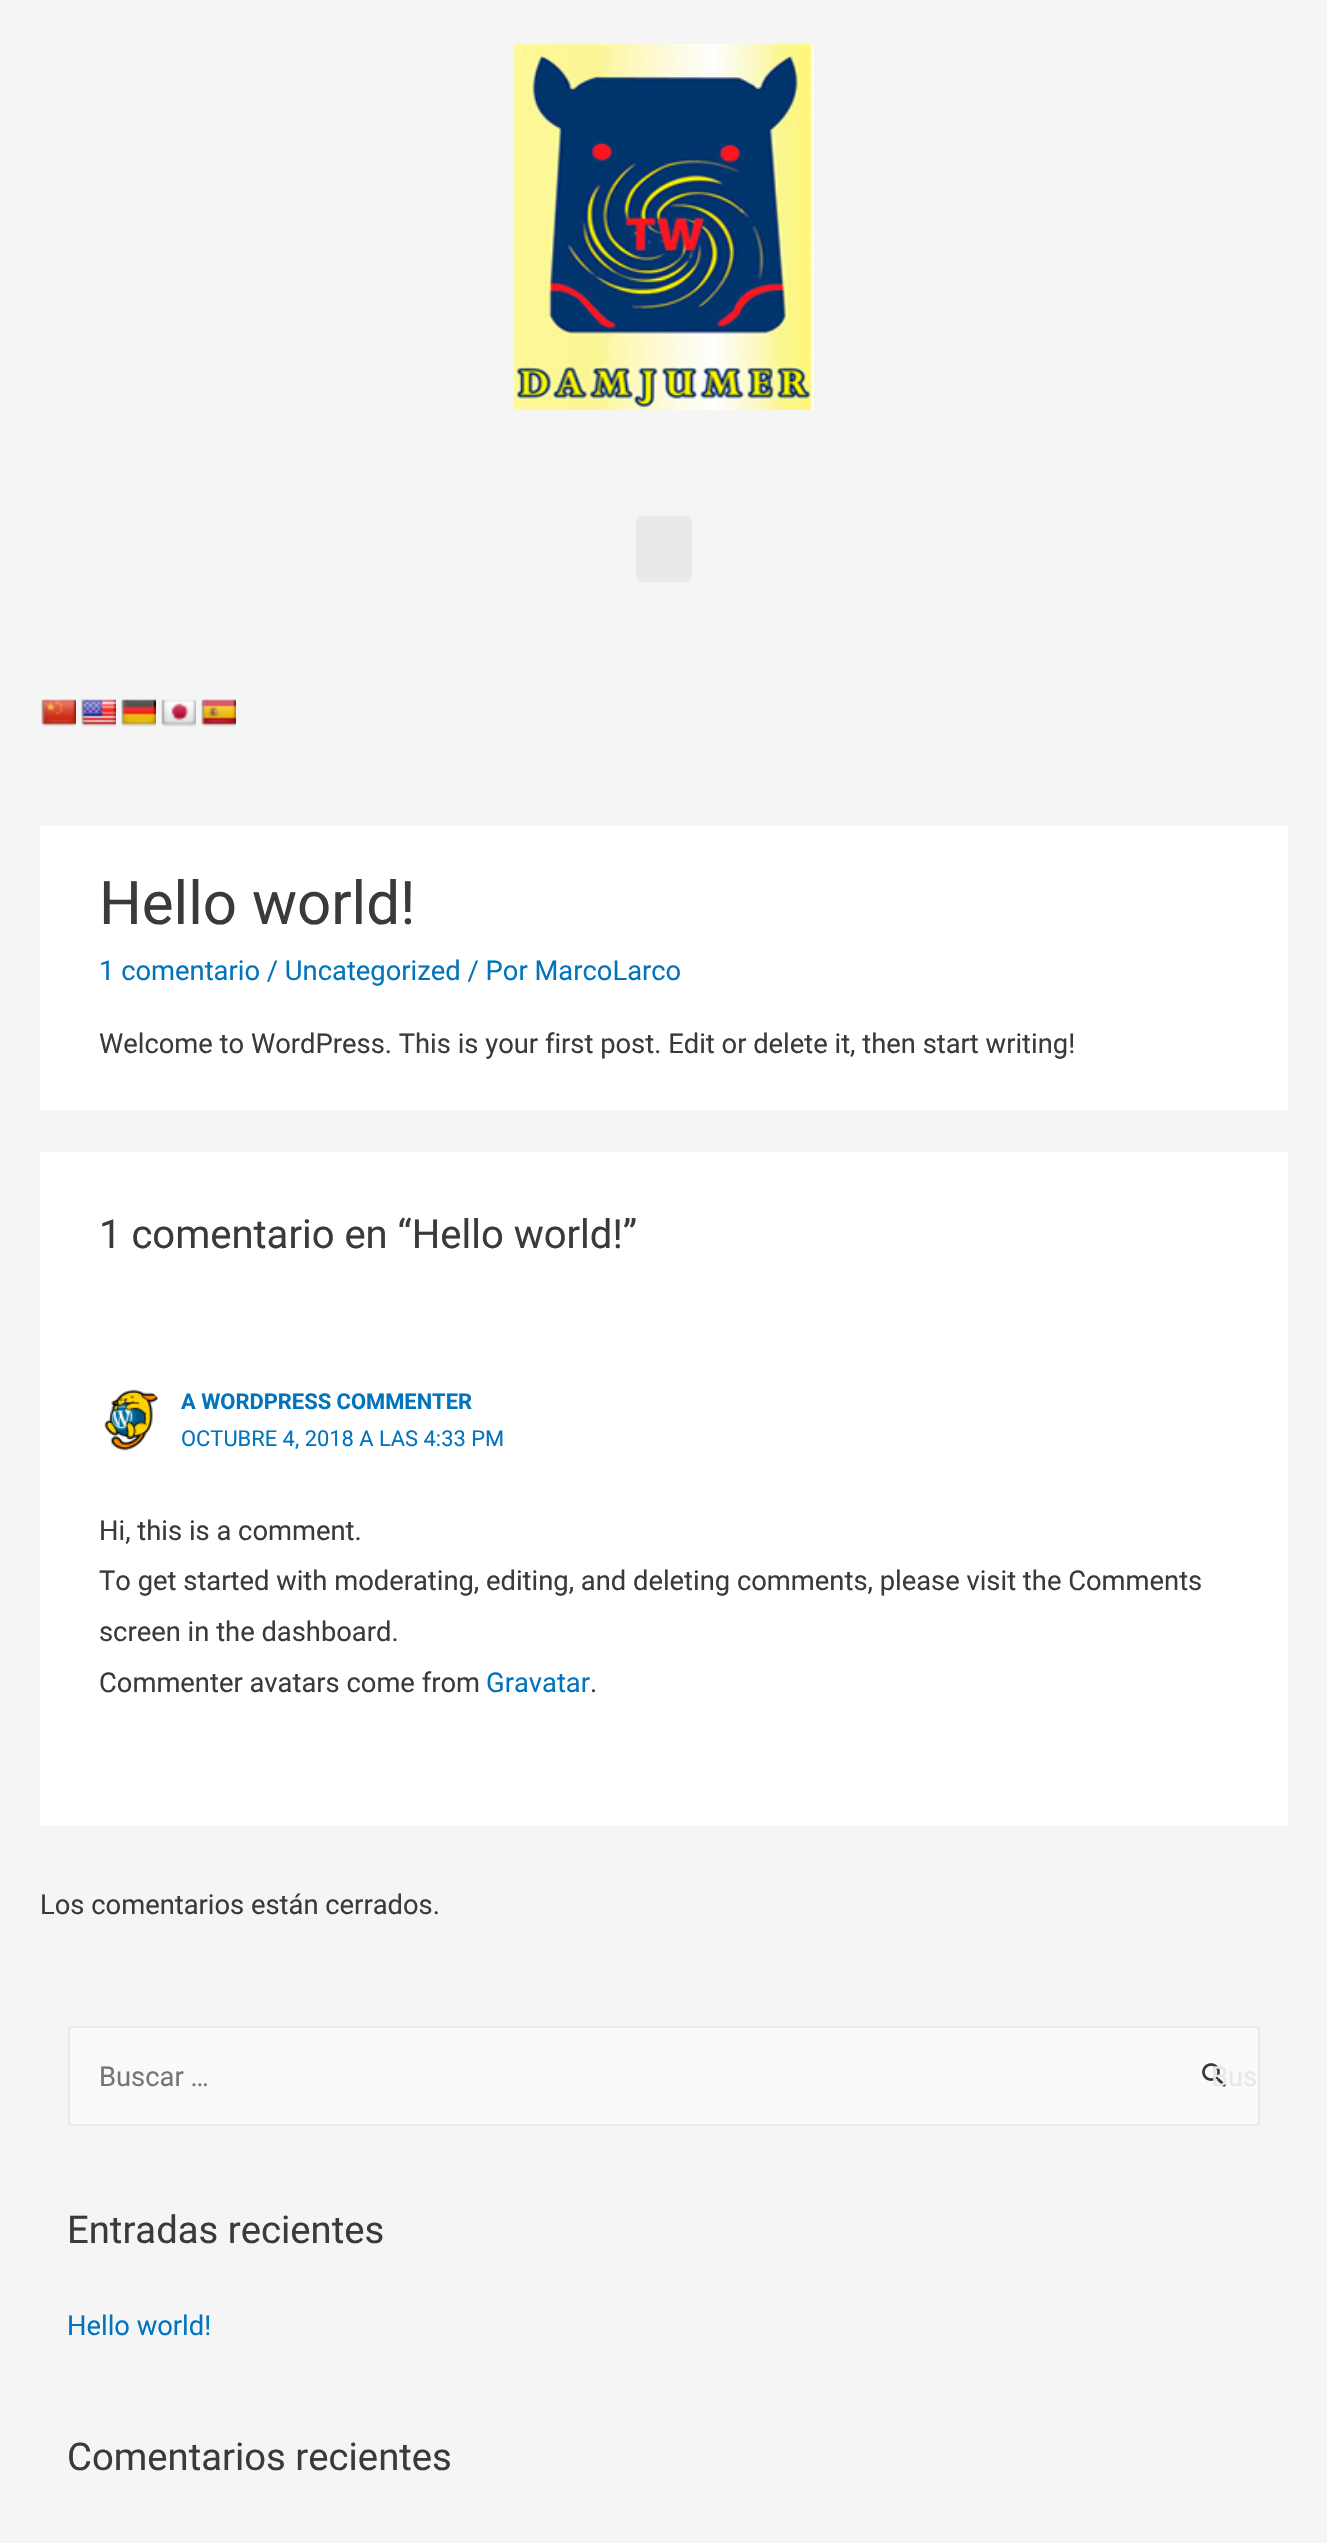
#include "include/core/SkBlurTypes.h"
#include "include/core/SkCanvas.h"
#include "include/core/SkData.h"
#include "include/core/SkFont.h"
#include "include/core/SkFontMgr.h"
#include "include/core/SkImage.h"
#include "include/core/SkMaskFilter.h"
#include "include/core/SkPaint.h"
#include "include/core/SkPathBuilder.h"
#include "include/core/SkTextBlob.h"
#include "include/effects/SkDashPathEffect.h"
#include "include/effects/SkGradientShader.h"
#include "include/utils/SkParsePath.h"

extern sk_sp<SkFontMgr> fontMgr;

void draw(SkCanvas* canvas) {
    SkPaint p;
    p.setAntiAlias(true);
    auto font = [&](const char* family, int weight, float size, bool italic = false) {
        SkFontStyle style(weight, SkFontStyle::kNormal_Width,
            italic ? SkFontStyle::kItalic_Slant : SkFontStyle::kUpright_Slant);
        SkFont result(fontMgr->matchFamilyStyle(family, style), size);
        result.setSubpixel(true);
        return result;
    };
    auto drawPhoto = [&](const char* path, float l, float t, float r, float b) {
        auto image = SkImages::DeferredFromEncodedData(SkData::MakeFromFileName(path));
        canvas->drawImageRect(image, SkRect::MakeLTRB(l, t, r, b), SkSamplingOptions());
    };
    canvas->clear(0xFFF5F5F5);
    drawPhoto("media/1.png", 514, 44, 814, 410);
    p.setColor(0xFFE9E9E9);
    canvas->drawRoundRect(SkRect::MakeLTRB(636, 516, 692, 582), 6, 6, p);
    drawPhoto("media/2.png", 41, 699, 76, 727);
    drawPhoto("media/3.png", 81, 699, 116, 727);
    drawPhoto("media/4.png", 121, 699, 156, 727);
    drawPhoto("media/5.png", 161, 699, 196, 727);
    drawPhoto("media/6.png", 201, 699, 236, 727);
    p.setColor(0xFFFFFFFF);
    canvas->drawRect(SkRect::MakeLTRB(40, 826, 1288, 1110), p);
    auto font1 = font("Roboto", 400, 60);
    p.setColor(0xFF3A3A3A);
    canvas->drawString("Hello world!", 99, 924, font1, p);
    auto font2 = font("Roboto", 400, 27.35f);
    p.setColor(0xFF0274BE);
    canvas->drawString("1 comentario / Uncategorized / Por MarcoLarco", 99, 980, font2, p);
    p.setColor(0xFF3A3A3A);
    canvas->drawString("Welcome to WordPress. This is your first post. Edit or delete it, then start writing!", 99, 1053, font2, p);
    p.setColor(0xFFFFFFFF);
    canvas->drawRect(SkRect::MakeLTRB(40, 1152, 1288, 1826), p);
    auto font3 = font("Roboto", 400, 40);
    p.setColor(0xFF3A3A3A);
    canvas->drawString("1 comentario en “Hello world!”", 99, 1248, font3, p);
    drawPhoto("media/7.png", 104, 1389, 158, 1451);
    auto font4 = font("Roboto", 700, 21.9f);
    p.setColor(0xFF0274BE);
    canvas->drawString("A WORDPRESS COMMENTER", 181, 1409, font4, p);
    auto font5 = font("Roboto", 400, 21.9f);
    canvas->drawString("OCTUBRE 4, 2018 A LAS 4:33 PM", 181, 1446, font5, p);
    p.setColor(0xFF3A3A3A);
    {
        const struct { const char* s; float x, y; } items[] = {
            {"Hi, this is a comment.", 99, 1540},
            {"To get started with moderating, editing, and deleting comments, please visit the Comments", 99, 1590},
            {"screen in the dashboard.", 99, 1641},
            {"Commenter avatars come from", 99, 1692},
        };
        for (auto [s, x, y] : items) {
            canvas->drawString(s, x, y, font2, p);
        }
    }
    p.setColor(0xFF0274BE);
    canvas->drawString("Gravatar", 486, 1692, font2, p);
    p.setColor(0xFF3A3A3A);
    canvas->drawString(".", 590, 1692, font2, p);
    canvas->drawString("Los comentarios están cerrados.", 40, 1914, font2, p);
    p.setColor(0xFFFAFAFA);
    canvas->drawRoundRect(SkRect::MakeLTRB(69, 2027, 1259, 2125), 3, 3, p);
    p.setStyle(SkPaint::kStroke_Style);
    p.setStrokeWidth(2);
    p.setColor(0xFFEAEAEA);
    canvas->drawRoundRect(SkRect::MakeLTRB(69, 2027, 1259, 2125), 3, 3, p);
    p.setStyle(SkPaint::kFill_Style);
    p.setColor(0xFF757575);
    canvas->drawString("Buscar …", 99, 2086, font2, p);
    drawPhoto("media/8.png", 1202, 2063, 1226, 2087);
    p.setColor(0xFFE7E7E7);
    canvas->drawString("Bus", 1211, 2086, font2, p);
    auto font6 = font("Roboto", 400, 38.25f);
    p.setColor(0xFF3A3A3A);
    canvas->drawString("Entradas recientes", 67, 2243, font6, p);
    p.setColor(0xFF0274BE);
    canvas->drawString("Hello world!", 67, 2335, font2, p);
    p.setColor(0xFF3A3A3A);
    canvas->drawString("Comentarios recientes", 67, 2470, font6, p);
}
